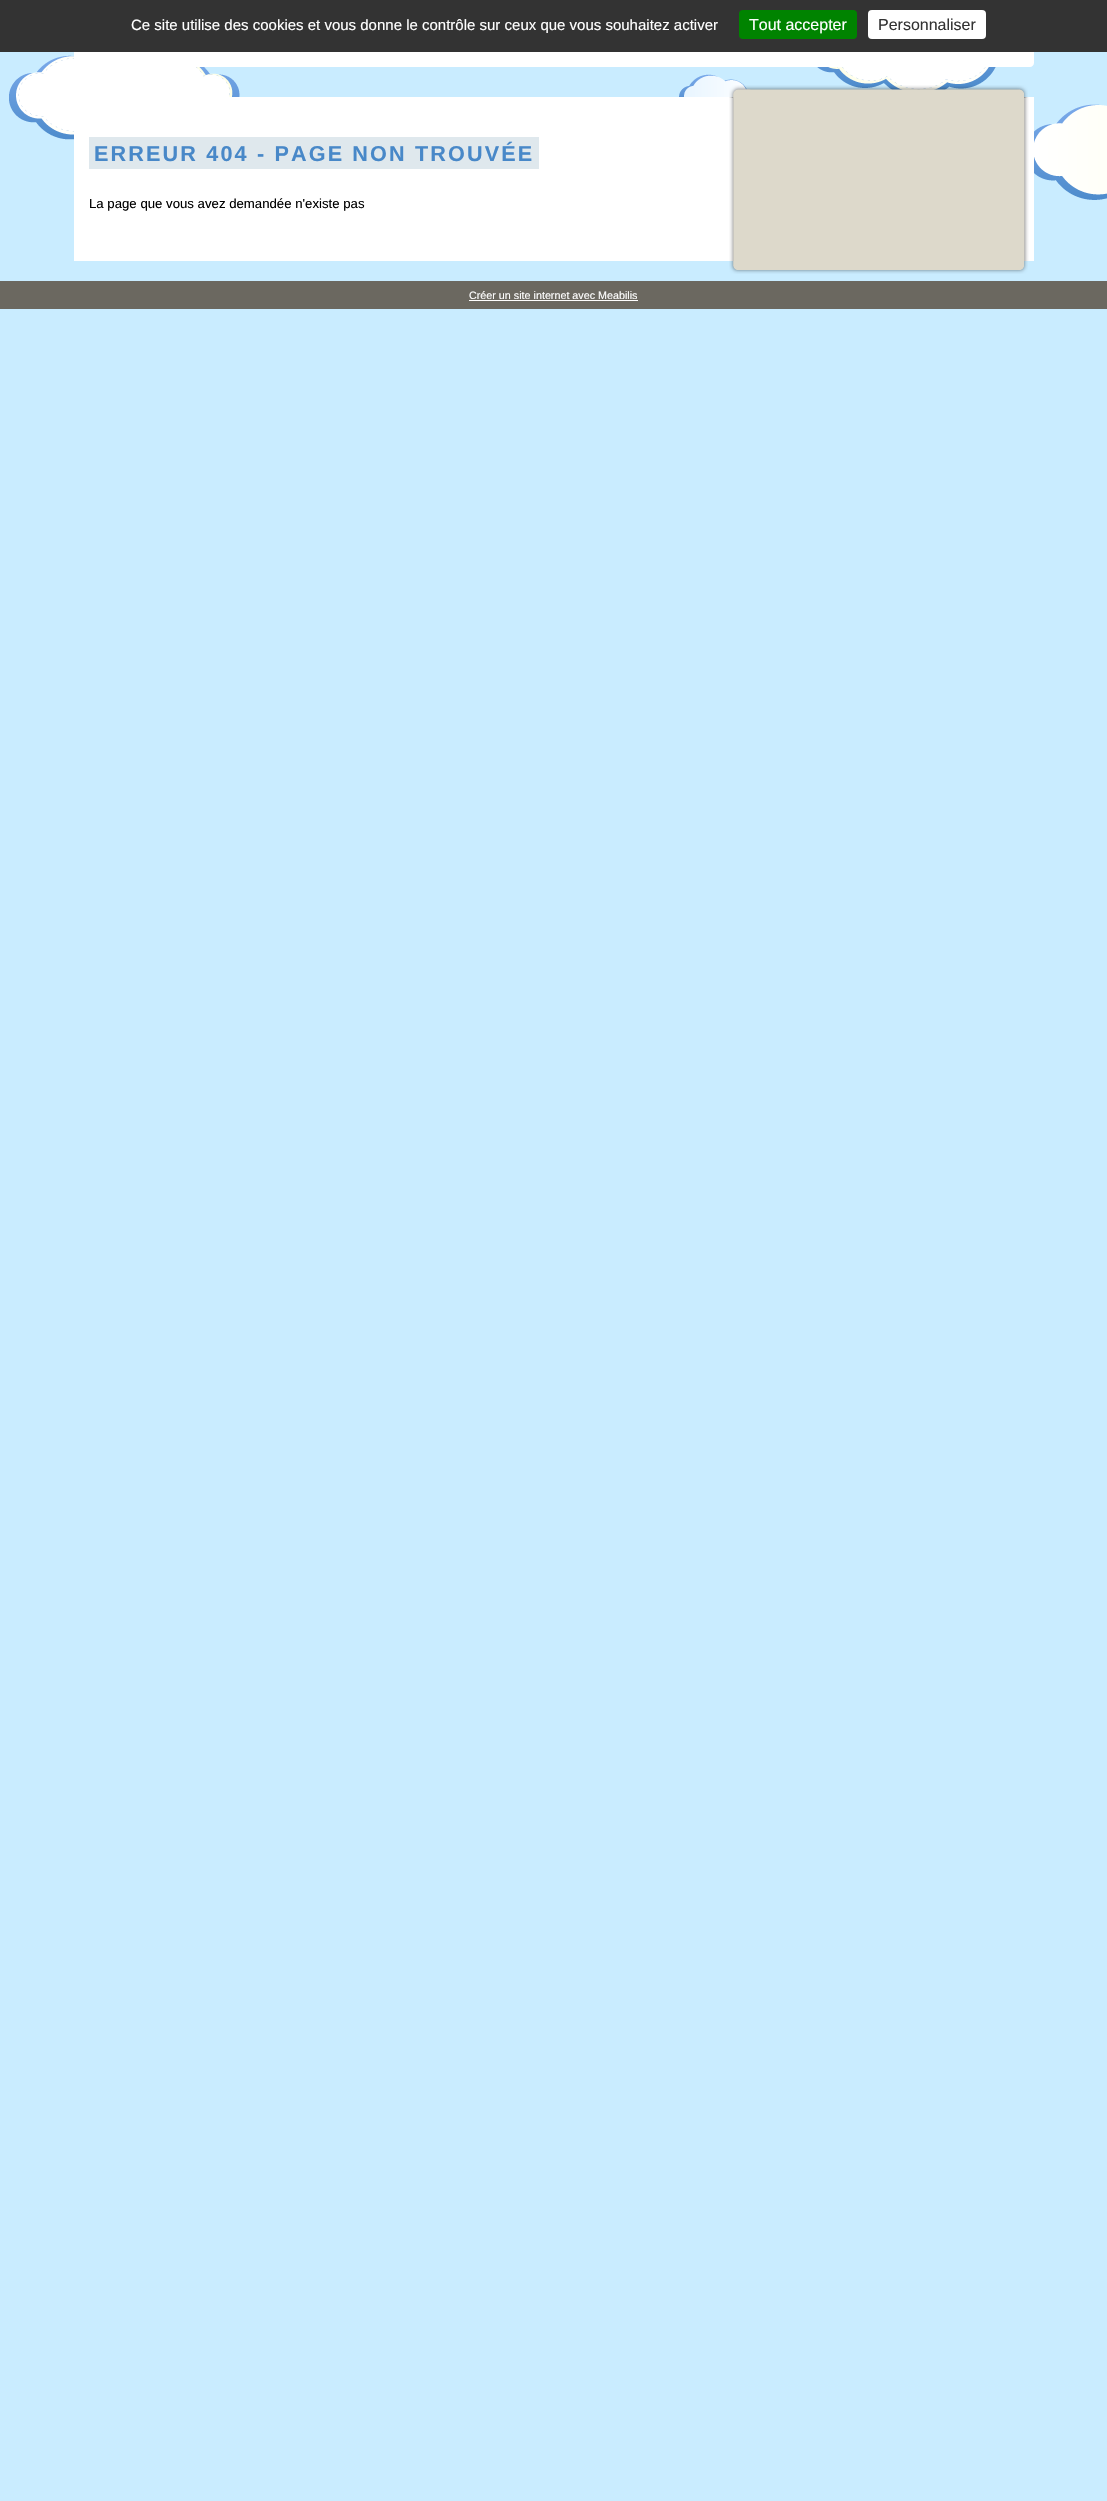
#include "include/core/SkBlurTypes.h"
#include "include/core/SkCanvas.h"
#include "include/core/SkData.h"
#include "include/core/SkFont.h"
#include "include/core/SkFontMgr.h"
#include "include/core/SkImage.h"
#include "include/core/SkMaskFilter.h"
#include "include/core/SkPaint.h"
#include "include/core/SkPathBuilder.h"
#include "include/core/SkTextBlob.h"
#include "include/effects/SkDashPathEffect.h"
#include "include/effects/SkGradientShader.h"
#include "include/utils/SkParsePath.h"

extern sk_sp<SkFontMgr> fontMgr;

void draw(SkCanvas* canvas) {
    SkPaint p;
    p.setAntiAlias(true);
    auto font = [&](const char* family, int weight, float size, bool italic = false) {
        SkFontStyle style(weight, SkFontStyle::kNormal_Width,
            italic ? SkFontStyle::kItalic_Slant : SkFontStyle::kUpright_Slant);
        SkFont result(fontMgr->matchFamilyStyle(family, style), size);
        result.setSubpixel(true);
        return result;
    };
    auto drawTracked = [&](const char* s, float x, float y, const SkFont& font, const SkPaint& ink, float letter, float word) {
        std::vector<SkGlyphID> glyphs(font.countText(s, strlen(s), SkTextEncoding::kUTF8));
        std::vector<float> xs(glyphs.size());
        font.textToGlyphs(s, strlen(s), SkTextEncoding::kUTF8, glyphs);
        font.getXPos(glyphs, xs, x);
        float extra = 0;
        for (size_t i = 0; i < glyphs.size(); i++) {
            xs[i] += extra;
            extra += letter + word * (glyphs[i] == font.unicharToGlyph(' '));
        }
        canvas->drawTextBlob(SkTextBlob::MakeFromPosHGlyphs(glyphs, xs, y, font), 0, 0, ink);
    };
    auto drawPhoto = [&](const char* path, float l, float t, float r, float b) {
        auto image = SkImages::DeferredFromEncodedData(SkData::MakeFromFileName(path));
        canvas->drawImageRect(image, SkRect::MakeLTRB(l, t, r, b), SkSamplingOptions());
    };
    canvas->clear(0xFFC9ECFF);
    drawPhoto("media/1.png", 9, 55, 1107, 200);
    p.setColor(0xFFFFFFFF);
    canvas->drawPath(SkPathBuilder().moveTo(74, 25).lineTo(1034, 25).lineTo(1034, 63).cubicTo(1034, 65, 1032, 67, 1030, 67).lineTo(78, 67).cubicTo(76, 67, 74, 65, 74, 63).close().detach(), p);
    p.setColor(0xFF333333);
    canvas->drawRect(SkRect::MakeLTRB(0, 0, 1107, 52), p);
    auto font1 = font("Liberation Sans", 400, 15);
    p.setColor(0xFFFFFFFF);
    canvas->drawString("Ce site utilise des cookies et vous donne le contrôle sur ceux que vous souhaitez activer", 131, 30, font1, p);
    p.setColor(0xFF008300);
    canvas->drawRoundRect(SkRect::MakeLTRB(739, 10, 857, 39), 4, 4, p);
    auto font2 = font("Liberation Sans", 400, 16);
    p.setColor(0xFFFFFFFF);
    canvas->drawString("Tout accepter", 749, 30, font2, p);
    canvas->drawRoundRect(SkRect::MakeLTRB(868, 10, 986, 39), 4, 4, p);
    p.setColor(0xFF333333);
    canvas->drawString("Personnaliser", 878, 30, font2, p);
    p.setColor(0xFFFFFFFF);
    canvas->drawRect(SkRect::MakeLTRB(74, 97, 1034, 261), p);
    drawPhoto("media/2.png", 729, 97, 1029, 261);
    drawPhoto("media/3.png", 729, 85, 1028, 98);
    p.setColor(0xFFDFE8ED);
    canvas->drawRect(SkRect::MakeLTRB(89, 137, 539, 169), p);
    auto font3 = font("Liberation Sans", 700, 21.6f);
    p.setColor(0xFF4888C8);
    drawTracked("ERREUR 404 - PAGE NON TROUVÉE", 94, 161, font3, p, 2.15f, 0);
    auto font4 = font("Liberation Sans", 400, 13.2f);
    p.setColor(0xFF000000);
    canvas->drawString("La page que vous avez demandée n'existe pas", 89, 208, font4, p);
    drawPhoto("media/4.png", 729, 261, 1028, 274);
    p.setColor(0xFF6B6860);
    canvas->drawRect(SkRect::MakeLTRB(0, 281, 1107, 309), p);
    auto font5 = font("Liberation Sans", 400, 10.75f);
    p.setColor(0xFFFFFFFF);
    canvas->drawString("Créer un site internet avec Meabilis", 469, 299, font5, p);
    canvas->drawRect(SkRect::MakeLTRB(469, 300, 638, 301), p);
}
